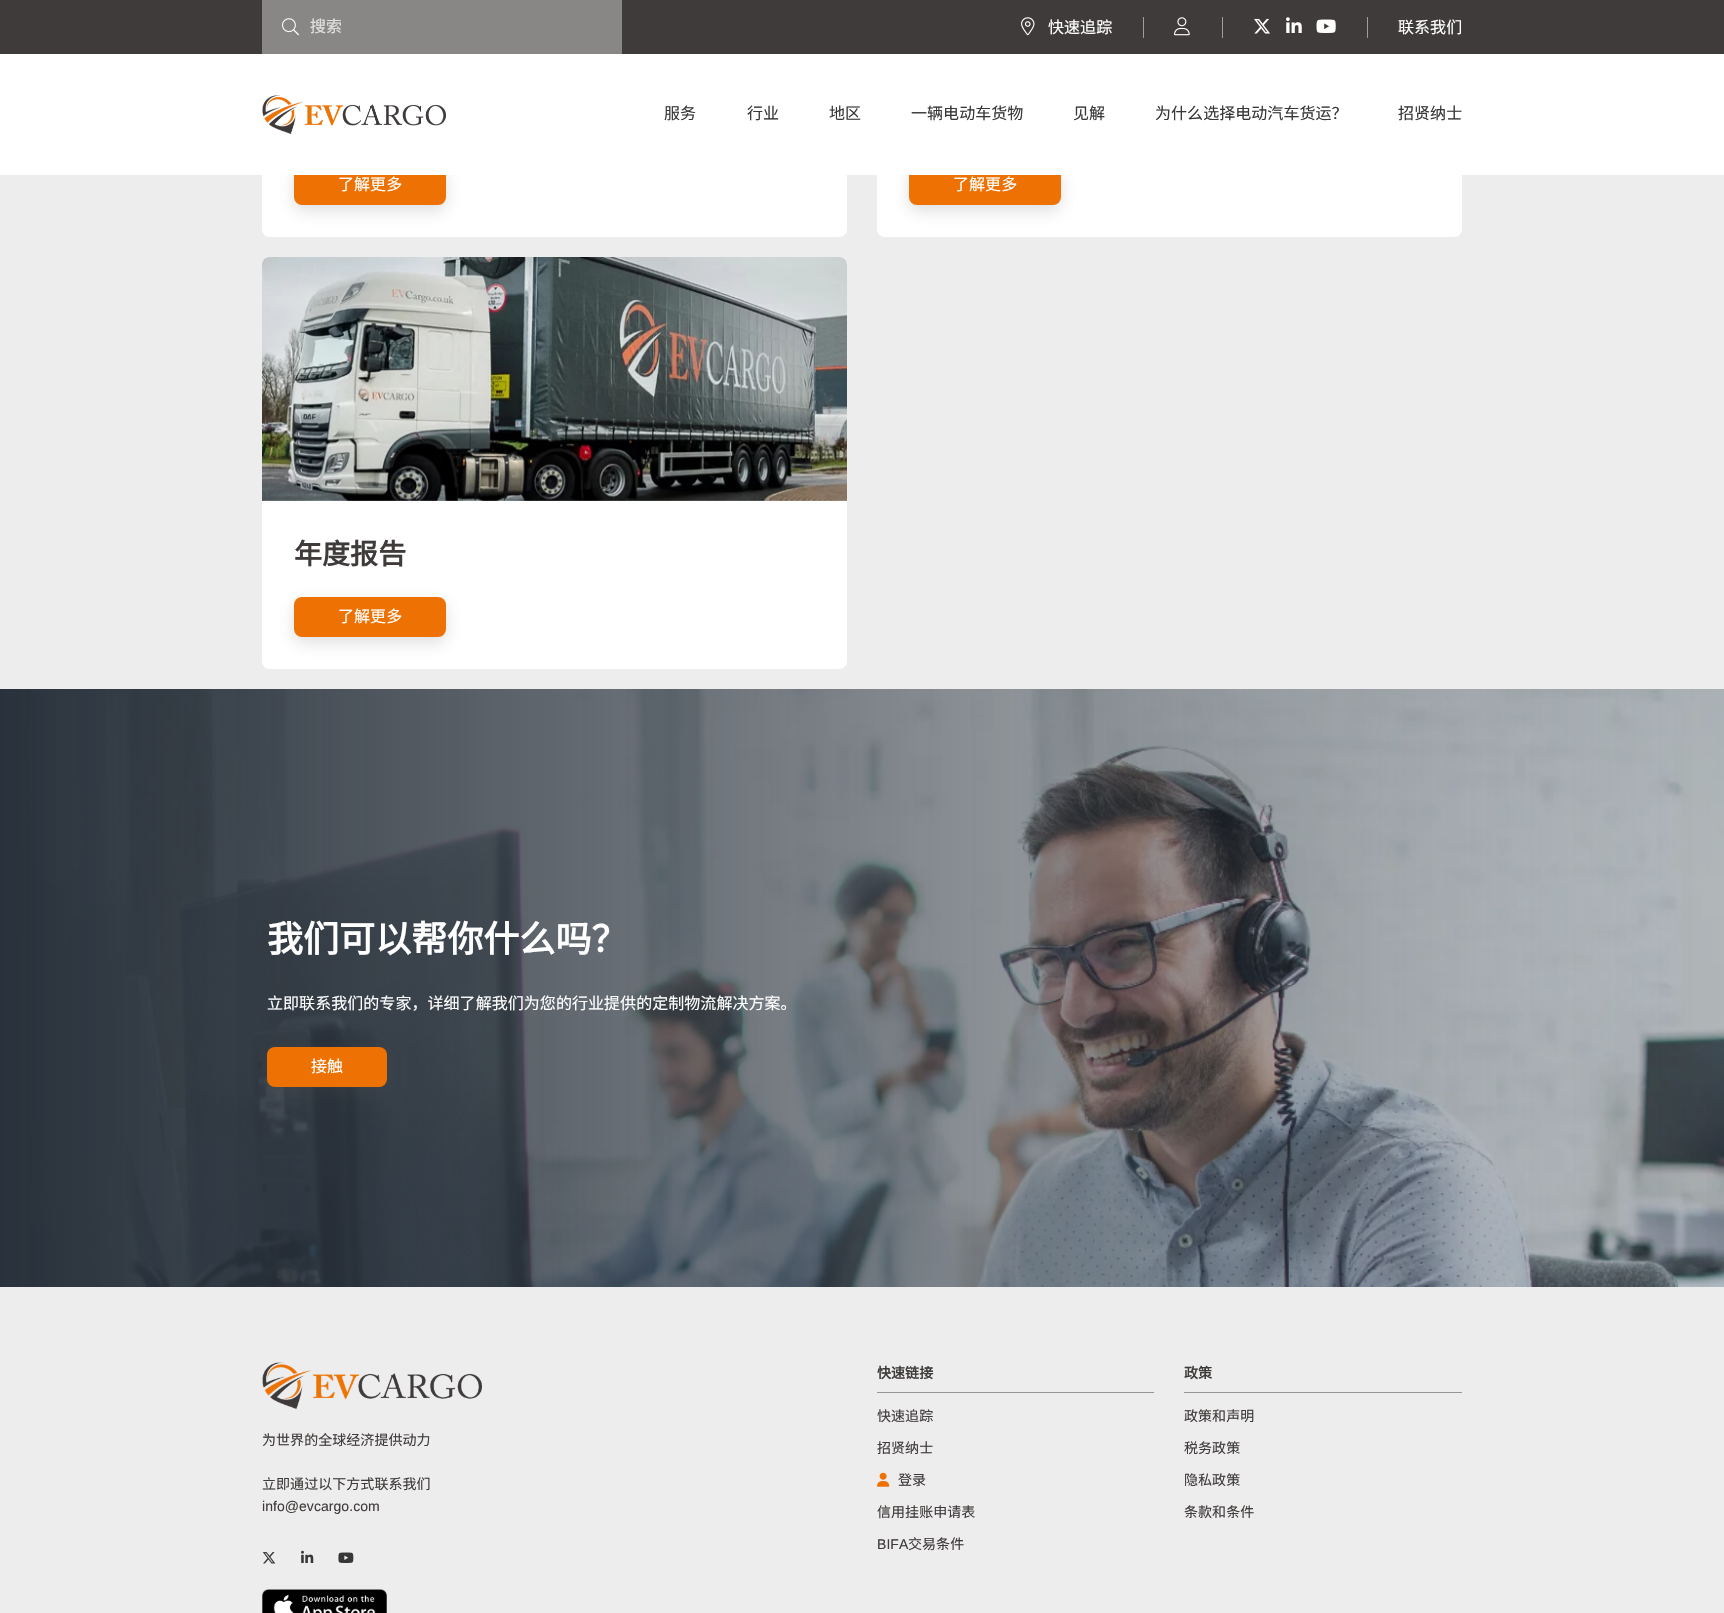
#include "include/core/SkBlurTypes.h"
#include "include/core/SkCanvas.h"
#include "include/core/SkData.h"
#include "include/core/SkFont.h"
#include "include/core/SkFontMgr.h"
#include "include/core/SkImage.h"
#include "include/core/SkMaskFilter.h"
#include "include/core/SkPaint.h"
#include "include/core/SkPathBuilder.h"
#include "include/core/SkTextBlob.h"
#include "include/effects/SkDashPathEffect.h"
#include "include/effects/SkGradientShader.h"
#include "include/utils/SkParsePath.h"

extern sk_sp<SkFontMgr> fontMgr;

void draw(SkCanvas* canvas) {
    SkPaint p;
    p.setAntiAlias(true);
    auto font = [&](const char* family, int weight, float size, bool italic = false) {
        SkFontStyle style(weight, SkFontStyle::kNormal_Width,
            italic ? SkFontStyle::kItalic_Slant : SkFontStyle::kUpright_Slant);
        SkFont result(fontMgr->matchFamilyStyle(family, style), size);
        result.setSubpixel(true);
        return result;
    };
    auto drawTracked = [&](const char* s, float x, float y, const SkFont& font, const SkPaint& ink, float letter, float word) {
        std::vector<SkGlyphID> glyphs(font.countText(s, strlen(s), SkTextEncoding::kUTF8));
        std::vector<float> xs(glyphs.size());
        font.textToGlyphs(s, strlen(s), SkTextEncoding::kUTF8, glyphs);
        font.getXPos(glyphs, xs, x);
        float extra = 0;
        for (size_t i = 0; i < glyphs.size(); i++) {
            xs[i] += extra;
            extra += letter + word * (glyphs[i] == font.unicharToGlyph(' '));
        }
        canvas->drawTextBlob(SkTextBlob::MakeFromPosHGlyphs(glyphs, xs, y, font), 0, 0, ink);
    };
    auto drawPhoto = [&](const char* path, float l, float t, float r, float b) {
        auto image = SkImages::DeferredFromEncodedData(SkData::MakeFromFileName(path));
        canvas->drawImageRect(image, SkRect::MakeLTRB(l, t, r, b), SkSamplingOptions());
    };
    canvas->clear(0xFFEDEDED);
    p.setColor(0xFF3F3B3A);
    canvas->drawRect(SkRect::MakeLTRB(0, 0, 1724, 54), p);
    p.setColor(0xFF898786);
    canvas->drawRect(SkRect::MakeLTRB(262, 0, 622, 54), p);
    drawPhoto("media/1.png", 282, 18, 299, 36);
    auto font1 = font("Noto Sans CJK SC", 400, 16);
    p.setColor(0xFFE2E1E1);
    canvas->drawString("搜索", 310, 32, font1, p);
    drawPhoto("media/2.png", 1021, 17, 1035, 36);
    p.setColor(0xFFFFFFFF);
    drawTracked("快速追踪", 1048, 33, font1, p, 0.05f, 0);
    p.setColor(0x80FFFFFF);
    canvas->drawRect(SkRect::MakeLTRB(1143, 17, 1144, 38), p);
    drawPhoto("media/3.png", 1174, 17, 1190, 36);
    canvas->drawRect(SkRect::MakeLTRB(1222, 17, 1223, 38), p);
    drawPhoto("media/4.png", 1254, 18, 1270, 34);
    drawPhoto("media/5.png", 1286, 17, 1302, 33);
    drawPhoto("media/6.png", 1316, 19, 1336, 33);
    p.setColor(0xFF9F9D9D);
    canvas->drawRect(SkRect::MakeLTRB(1367, 17, 1368, 38), p);
    p.setColor(0xFFFFFFFF);
    drawTracked("联系我们", 1398, 33, font1, p, 0.05f, 0);
    canvas->drawPath(SkPathBuilder().moveTo(262, 69).lineTo(847, 69).lineTo(847, 229).cubicTo(847, 233.5f, 843.5f, 237, 839, 237).lineTo(270, 237).cubicTo(265.5f, 237, 262, 233.5f, 262, 229).close().detach(), p);
    p.setColor(0x335D5D5D);
    p.setMaskFilter(SkMaskFilter::MakeBlur(kNormal_SkBlurStyle, 8));
    canvas->drawRoundRect(SkRect::MakeLTRB(294, 171, 446, 211), 8, 8, p);
    p.setMaskFilter(nullptr);
    p.setColor(0xFFEE7203);
    canvas->drawRoundRect(SkRect::MakeLTRB(294, 165, 446, 205), 8, 8, p);
    p.setColor(0xFFFFFFFF);
    canvas->drawPath(SkPathBuilder().moveTo(877, 69).lineTo(1462, 69).lineTo(1462, 229).cubicTo(1462, 233.5f, 1458.5f, 237, 1454, 237).lineTo(885, 237).cubicTo(880.5f, 237, 877, 233.5f, 877, 229).close().detach(), p);
    p.setColor(0x335D5D5D);
    p.setMaskFilter(SkMaskFilter::MakeBlur(kNormal_SkBlurStyle, 8));
    canvas->drawRoundRect(SkRect::MakeLTRB(909, 171, 1061, 211), 8, 8, p);
    p.setMaskFilter(nullptr);
    p.setColor(0xFFEE7203);
    canvas->drawRoundRect(SkRect::MakeLTRB(909, 165, 1061, 205), 8, 8, p);
    p.setColor(0xFFFFFFFF);
    canvas->drawRect(SkRect::MakeLTRB(0, 54, 1724, 175), p);
    drawPhoto("media/7.png", 262, 95, 446, 134);
    p.setColor(0xFF373738);
    {
        const struct { const char* s; float x, y; } items[] = {
            {"服务", 664, 119},
            {"行业", 747, 119},
            {"地区", 829, 119},
            {"一辆电动车货物", 911, 119},
            {"见解", 1073, 119},
            {"为什么选择电动汽车货运？", 1155, 119},
            {"招贤纳士", 1398, 119},
        };
        for (auto [s, x, y] : items) {
            drawTracked(s, x, y, font1, p, 0.05f, 0);
        }
    }
    p.setColor(0xFFFFFFFF);
    drawTracked("了解更多", 338, 190, font1, p, 0.05f, 0);
    drawTracked("了解更多", 953, 190, font1, p, 0.05f, 0);
    drawPhoto("media/8.png", 262, 257, 847, 501);
    canvas->drawPath(SkPathBuilder().moveTo(262, 501).lineTo(847, 501).lineTo(847, 661).cubicTo(847, 665.5f, 843.5f, 669, 839, 669).lineTo(270, 669).cubicTo(265.5f, 669, 262, 665.5f, 262, 661).close().detach(), p);
    auto font2 = font("Noto Sans CJK SC", 700, 28);
    p.setColor(0xFF3F3B3A);
    drawTracked("年度报告", 294, 564, font2, p, 0.05f, 0);
    p.setColor(0x335D5D5D);
    p.setMaskFilter(SkMaskFilter::MakeBlur(kNormal_SkBlurStyle, 8));
    canvas->drawRoundRect(SkRect::MakeLTRB(294, 603, 446, 643), 8, 8, p);
    p.setMaskFilter(nullptr);
    p.setColor(0xFFEE7203);
    canvas->drawRoundRect(SkRect::MakeLTRB(294, 597, 446, 637), 8, 8, p);
    p.setColor(0xFFFFFFFF);
    drawTracked("了解更多", 338, 622, font1, p, 0.05f, 0);
    drawPhoto("media/9.png", 0, 689, 1724, 1287);
    auto font3 = font("Noto Sans CJK SC", 700, 36);
    drawTracked("我们可以帮你什么吗？", 267, 952, font3, p, 0.05f, 0);
    drawTracked("立即联系我们的专家，详细了解我们为您的行业提供的定制物流解决方案。", 267, 1009, font1, p, 0.05f, 0);
    p.setColor(0x335D5D5D);
    p.setMaskFilter(SkMaskFilter::MakeBlur(kNormal_SkBlurStyle, 8));
    canvas->drawRoundRect(SkRect::MakeLTRB(267, 1053, 387, 1093), 8, 8, p);
    p.setMaskFilter(nullptr);
    p.setColor(0xFFEE7203);
    canvas->drawRoundRect(SkRect::MakeLTRB(267, 1047, 387, 1087), 8, 8, p);
    p.setColor(0xFFFFFFFF);
    drawTracked("接触", 311, 1072, font1, p, 0.05f, 0);
    drawPhoto("media/10.png", 262, 1362, 482, 1409);
    auto font4 = font("Noto Sans CJK SC", 400, 14);
    p.setColor(0xFF3F3B3A);
    drawTracked("为世界的全球经济提供动力", 262, 1445, font4, p, 0.05f, 0);
    drawTracked("立即通过以下方式联系我们", 262, 1489, font4, p, 0.05f, 0);
    auto font5 = font("Liberation Sans", 400, 14);
    drawTracked("info@evcargo.com", 262, 1511, font5, p, 0.05f, 0);
    drawPhoto("media/11.png", 262, 1552, 276, 1564);
    drawPhoto("media/12.png", 301, 1550, 314, 1563);
    drawPhoto("media/13.png", 338, 1552, 354, 1563);
    drawPhoto("media/14.png", 262, 1589, 387, 1613);
    p.setColor(0xFF979797);
    canvas->drawRect(SkRect::MakeLTRB(877, 1392, 1154, 1393), p);
    auto font6 = font("Noto Sans CJK SC", 700, 14);
    p.setColor(0xFF3F3B3A);
    drawTracked("快速链接", 877, 1378, font6, p, 0.05f, 0);
    drawTracked("快速追踪", 877, 1421, font4, p, 0.05f, 0);
    drawTracked("招贤纳士", 877, 1453, font4, p, 0.05f, 0);
    drawPhoto("media/15.png", 877, 1472, 890, 1487);
    drawTracked("登录", 898, 1485, font4, p, 0.05f, 0);
    drawTracked("信用挂账申请表", 877, 1517, font4, p, 0.05f, 0);
    drawTracked("BIFA", 877, 1549, font5, p, 0.05f, 0);
    drawTracked("交易条件", 908, 1549, font4, p, 0.05f, 0);
    p.setColor(0xFF979797);
    canvas->drawRect(SkRect::MakeLTRB(1184, 1392, 1462, 1393), p);
    p.setColor(0xFF3F3B3A);
    drawTracked("政策", 1184, 1378, font6, p, 0.05f, 0);
    {
        const struct { const char* s; float x, y; } items[] = {
            {"政策和声明", 1184, 1421},
            {"税务政策", 1184, 1453},
            {"隐私政策", 1184, 1485},
            {"条款和条件", 1184, 1517},
        };
        for (auto [s, x, y] : items) {
            drawTracked(s, x, y, font4, p, 0.05f, 0);
        }
    }
}
